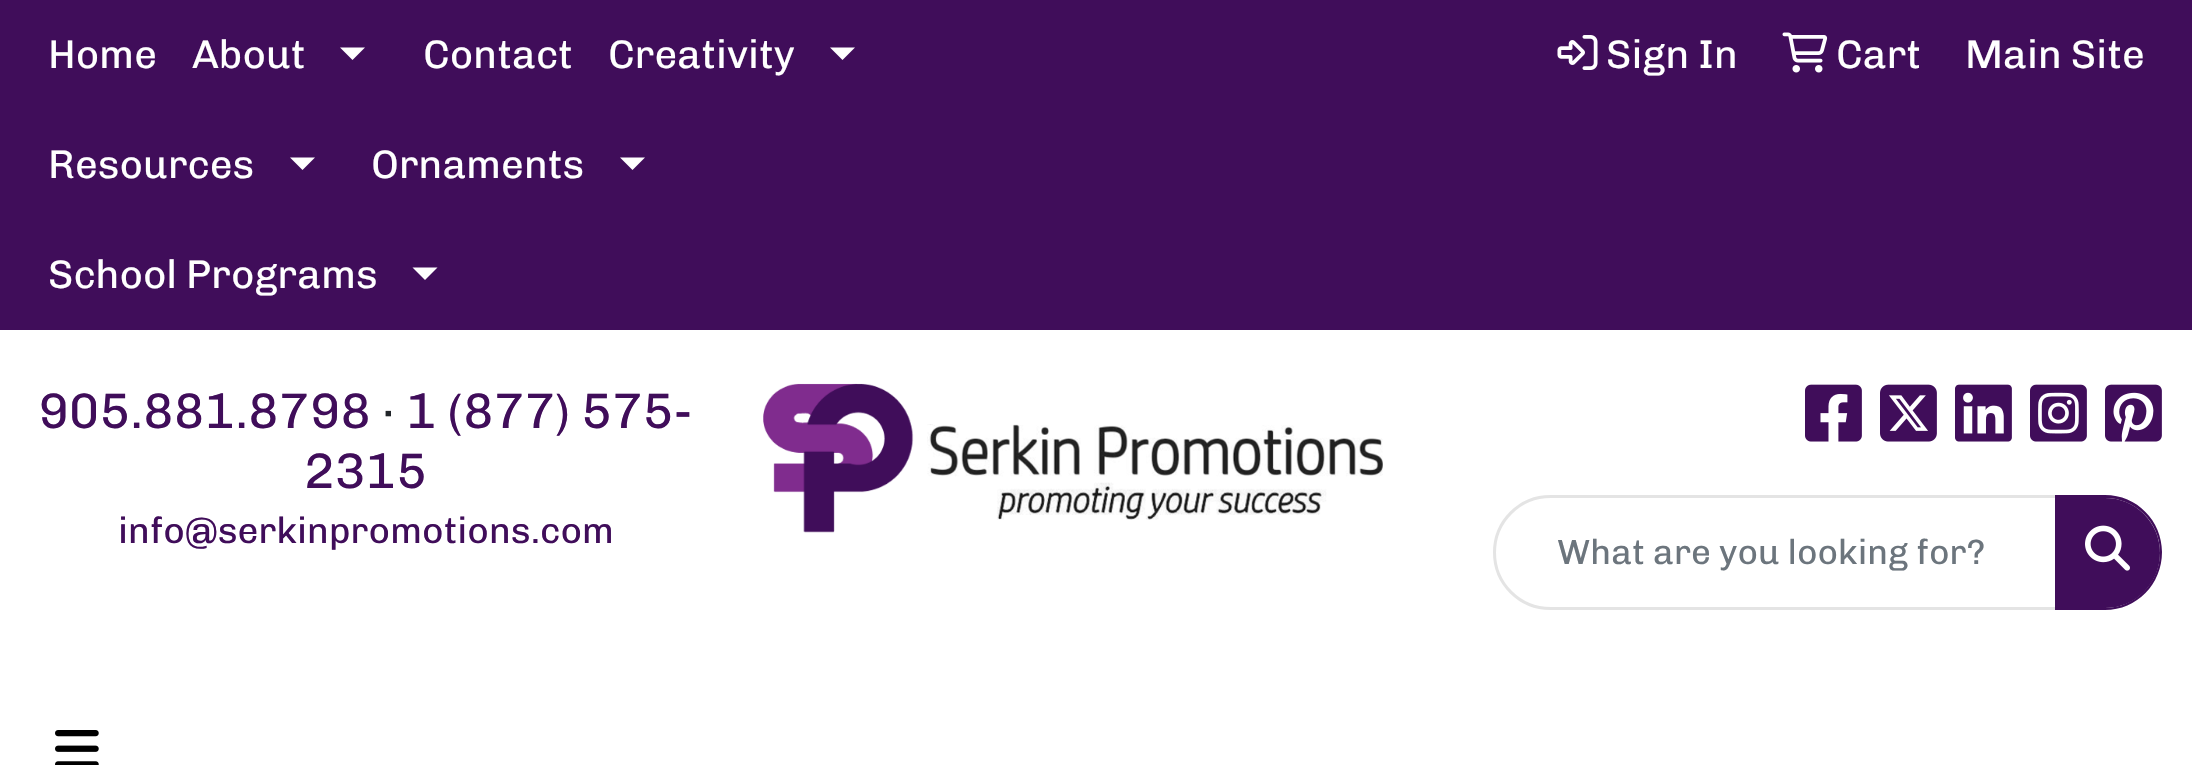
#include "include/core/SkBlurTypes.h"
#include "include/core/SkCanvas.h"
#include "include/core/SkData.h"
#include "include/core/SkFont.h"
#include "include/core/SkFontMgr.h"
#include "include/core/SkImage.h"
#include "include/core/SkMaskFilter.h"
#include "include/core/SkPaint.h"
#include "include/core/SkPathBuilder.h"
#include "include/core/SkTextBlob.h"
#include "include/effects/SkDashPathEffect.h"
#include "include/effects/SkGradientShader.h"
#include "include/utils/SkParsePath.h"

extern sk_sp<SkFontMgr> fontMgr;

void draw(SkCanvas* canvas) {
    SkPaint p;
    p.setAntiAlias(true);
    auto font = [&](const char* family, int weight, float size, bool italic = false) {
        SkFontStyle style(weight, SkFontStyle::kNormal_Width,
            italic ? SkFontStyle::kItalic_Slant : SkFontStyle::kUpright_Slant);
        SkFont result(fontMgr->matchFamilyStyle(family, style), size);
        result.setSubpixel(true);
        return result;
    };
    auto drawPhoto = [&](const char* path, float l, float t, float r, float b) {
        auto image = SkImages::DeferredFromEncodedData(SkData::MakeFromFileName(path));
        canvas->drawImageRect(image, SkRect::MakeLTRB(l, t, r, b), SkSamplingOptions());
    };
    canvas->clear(0xFFFFFFFF);
    p.setColor(0xFF400D5A);
    canvas->drawRect(SkRect::MakeLTRB(0, 0, 2192, 330), p);
    auto font1 = font("Chivo", 500, 40);
    p.setColor(0xFFFFFFFF);
    canvas->drawString("Home", 48, 68, font1, p);
    canvas->drawString("About", 192, 68, font1, p);
    canvas->drawPath(SkPathBuilder().moveTo(340, 47.5f).lineTo(365, 47.5f).lineTo(352.5f, 60).close().detach(), p);
    canvas->drawString("Contact", 423, 68, font1, p);
    canvas->drawString("Creativity", 608, 68, font1, p);
    canvas->drawPath(SkPathBuilder().moveTo(830, 47.5f).lineTo(855, 47.5f).lineTo(842.5f, 60).close().detach(), p);
    canvas->drawString("Resources", 48, 178, font1, p);
    canvas->drawPath(SkPathBuilder().moveTo(290, 157.5f).lineTo(315, 157.5f).lineTo(302.5f, 170).close().detach(), p);
    canvas->drawString("Ornaments", 371, 178, font1, p);
    canvas->drawPath(SkPathBuilder().moveTo(620, 157.5f).lineTo(645, 157.5f).lineTo(632.5f, 170).close().detach(), p);
    canvas->drawString("School Programs", 48, 288, font1, p);
    canvas->drawPath(SkPathBuilder().moveTo(412.5f, 267.5f).lineTo(437.5f, 267.5f).lineTo(425, 280).close().detach(), p);
    drawPhoto("media/1.png", 1557, 35, 1598, 70);
    canvas->drawString("Sign In", 1606, 68, font1, p);
    drawPhoto("media/2.png", 1782, 32, 1828, 73);
    canvas->drawString("Cart", 1836, 68, font1, p);
    canvas->drawString("Main Site", 1965, 68, font1, p);
    auto font2 = font("Chivo", 500, 50);
    p.setColor(0xFF400D5A);
    canvas->drawString("905.881.8798", 38, 428, font2, p);
    p.setColor(0xFF212529);
    canvas->drawString("·", 382, 428, font2, p);
    p.setColor(0xFF400D5A);
    canvas->drawString("1 (877) 575-", 406, 428, font2, p);
    canvas->drawString("2315", 304, 488, font2, p);
    auto font3 = font("Chivo", 500, 36.7f);
    canvas->drawString("info@serkinpromotions.com", 118, 543, font3, p);
    drawPhoto("media/3.png", 763, 383, 1383, 533);
    drawPhoto("media/4.png", 1805, 384, 1862, 442);
    drawPhoto("media/5.png", 1880, 384, 1937, 442);
    drawPhoto("media/6.png", 1955, 384, 2012, 442);
    drawPhoto("media/7.png", 2030, 384, 2087, 442);
    drawPhoto("media/8.png", 2105, 384, 2162, 442);
    p.setStyle(SkPaint::kStroke_Style);
    p.setStrokeWidth(3);
    p.setColor(0xFFE4E4E4);
    canvas->drawPath(SkPathBuilder().moveTo(1550.5f, 496.5f).lineTo(2056.5f, 496.5f).lineTo(2056.5f, 608.5f).lineTo(1550.5f, 608.5f).cubicTo(1519.5f, 608.5f, 1494.5f, 583.5f, 1494.5f, 552.5f).cubicTo(1494.5f, 521.5f, 1519.5f, 496.5f, 1550.5f, 496.5f).close().detach(), p);
    auto font4 = font("Chivo", 500, 35);
    p.setStyle(SkPaint::kFill_Style);
    p.setColor(0xFF6C757D);
    canvas->drawString("What are you looking for?", 1557, 564, font4, p);
    p.setColor(0xFF400D5A);
    canvas->drawPath(SkPathBuilder().moveTo(2055, 498).lineTo(2105, 498).cubicTo(2135.5f, 498, 2160, 522.5f, 2160, 553).cubicTo(2160, 583.5f, 2135.5f, 608, 2105, 608).lineTo(2055, 608).close().detach(), p);
    canvas->drawPath(SkPathBuilder(SkPathFillType::kEvenOdd).moveTo(2055, 495).lineTo(2105, 495).cubicTo(2137, 495, 2162, 521, 2162, 552).cubicTo(2162, 584, 2137, 610, 2105, 610).lineTo(2055, 610).close().moveTo(2055, 498).lineTo(2105, 498).cubicTo(2135, 498, 2160, 522, 2160, 552).cubicTo(2160, 583, 2135, 608, 2105, 608).lineTo(2055, 608).close().detach(), p);
    drawPhoto("media/9.png", 2085, 525, 2130, 571);
    drawPhoto("media/10.png", 55, 730, 99, 765);
}
